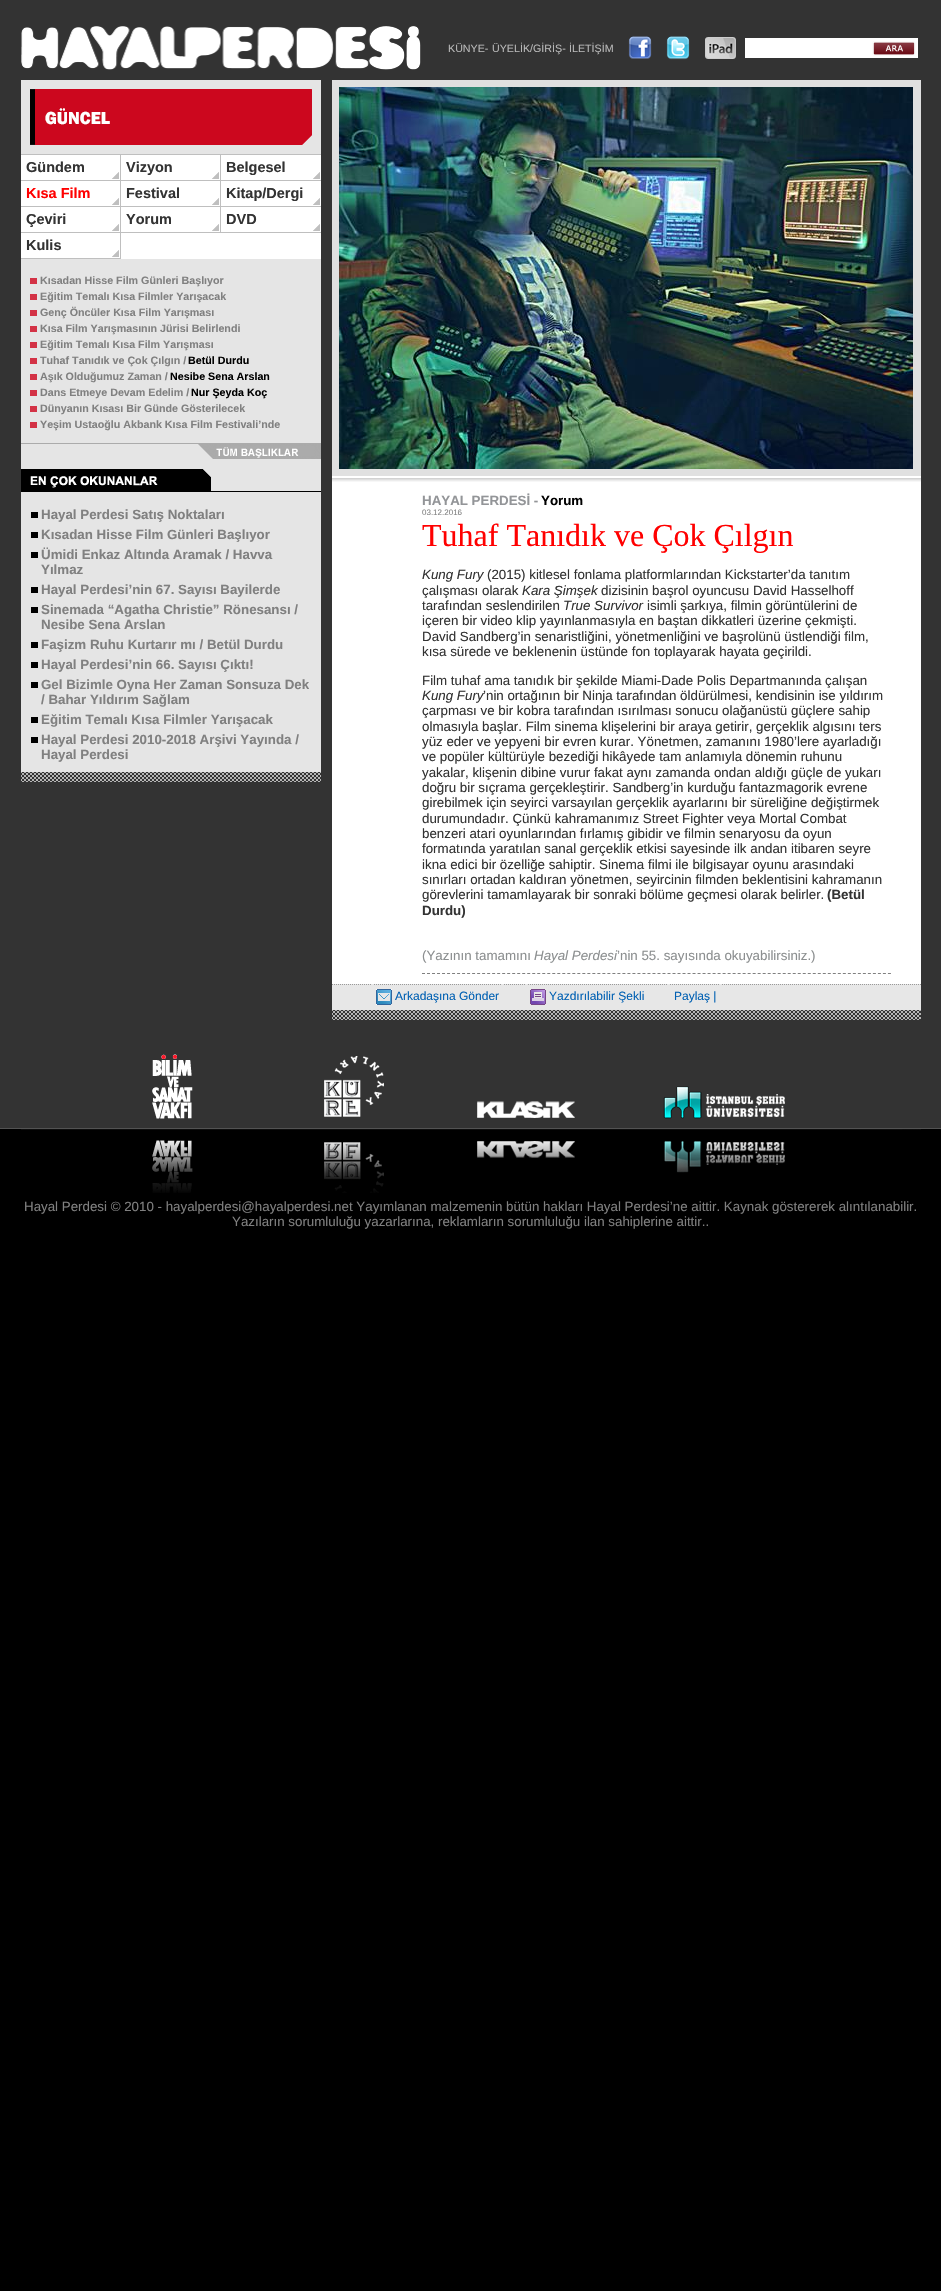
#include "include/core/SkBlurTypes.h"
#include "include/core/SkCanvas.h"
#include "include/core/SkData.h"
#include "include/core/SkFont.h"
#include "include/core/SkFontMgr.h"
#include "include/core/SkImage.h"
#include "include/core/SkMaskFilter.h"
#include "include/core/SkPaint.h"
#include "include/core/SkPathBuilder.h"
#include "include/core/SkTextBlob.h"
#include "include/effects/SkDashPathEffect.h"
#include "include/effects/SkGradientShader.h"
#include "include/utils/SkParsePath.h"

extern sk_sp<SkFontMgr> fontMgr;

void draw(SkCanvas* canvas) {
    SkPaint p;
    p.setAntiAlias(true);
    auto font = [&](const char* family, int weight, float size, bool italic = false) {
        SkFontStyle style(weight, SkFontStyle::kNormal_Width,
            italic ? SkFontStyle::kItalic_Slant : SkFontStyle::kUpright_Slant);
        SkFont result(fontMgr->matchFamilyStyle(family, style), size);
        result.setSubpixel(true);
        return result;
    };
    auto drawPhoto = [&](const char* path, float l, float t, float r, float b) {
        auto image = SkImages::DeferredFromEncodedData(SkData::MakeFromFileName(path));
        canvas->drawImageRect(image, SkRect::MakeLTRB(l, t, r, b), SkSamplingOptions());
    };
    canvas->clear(0xFF000000);
    p.setColor(0xFF333333);
    canvas->drawRect(SkRect::MakeLTRB(0, 0, 941, 1128), p);
    p.setColor(0xFF535353);
    canvas->drawRect(SkRect::MakeLTRB(0, 1128, 941, 1129), p);
    drawPhoto("media/1.png", 21, 26, 421, 70);
    auto font1 = font("Liberation Sans", 400, 10.7f);
    p.setColor(0xFFB8B8B8);
    {
        const struct { const char* s; float x, y; } items[] = {
            {"KÜNYE-", 448, 52},
            {"ÜYELİK/GİRİŞ-", 492, 52},
            {"İLETİŞİM", 569, 52},
        };
        for (auto [s, x, y] : items) {
            canvas->drawString(s, x, y, font1, p);
        }
    }
    drawPhoto("media/2.png", 628, 36, 652, 59);
    drawPhoto("media/3.png", 666, 36, 690, 60);
    drawPhoto("media/4.png", 705, 37, 736, 59);
    p.setColor(0xFFFFFFFF);
    canvas->drawRect(SkRect::MakeLTRB(745, 38, 918, 58), p);
    drawPhoto("media/5.png", 872, 41, 916, 56);
    p.setColor(0xFFE5E5E5);
    canvas->drawRect(SkRect::MakeLTRB(21, 80, 321, 154), p);
    drawPhoto("media/6.png", 30, 89, 312, 145);
    p.setColor(0xFFFFFFFF);
    canvas->drawRect(SkRect::MakeLTRB(21, 155, 321, 259), p);
    p.setColor(0xFFBFBFBF);
    canvas->drawRect(SkRect::MakeLTRB(21, 154, 321, 155), p);
    drawPhoto("media/7.png", 112, 172, 119, 179);
    canvas->drawRect(SkRect::MakeLTRB(120, 155, 121, 259), p);
    canvas->drawRect(SkRect::MakeLTRB(21, 180, 121, 181), p);
    auto font2 = font("Liberation Sans", 700, 14.5f);
    p.setColor(0xFF333333);
    canvas->drawString("Gündem", 26, 172, font2, p);
    drawPhoto("media/7.png", 212, 172, 219, 179);
    p.setColor(0xFFBFBFBF);
    canvas->drawRect(SkRect::MakeLTRB(220, 155, 221, 233), p);
    canvas->drawRect(SkRect::MakeLTRB(121, 180, 321, 181), p);
    p.setColor(0xFF333333);
    canvas->drawString("Vizyon", 126, 172, font2, p);
    drawPhoto("media/7.png", 313, 172, 320, 179);
    canvas->drawString("Belgesel", 226, 172, font2, p);
    drawPhoto("media/7.png", 112, 198, 119, 205);
    p.setColor(0xFFBFBFBF);
    canvas->drawRect(SkRect::MakeLTRB(21, 206, 321, 207), p);
    p.setColor(0xFFFF0000);
    canvas->drawString("Kısa Film", 26, 198, font2, p);
    drawPhoto("media/7.png", 212, 198, 219, 205);
    p.setColor(0xFF333333);
    canvas->drawString("Festival", 126, 198, font2, p);
    drawPhoto("media/7.png", 313, 198, 320, 205);
    canvas->drawString("Kitap/Dergi", 226, 198, font2, p);
    drawPhoto("media/7.png", 112, 224, 119, 231);
    p.setColor(0xFFBFBFBF);
    canvas->drawRect(SkRect::MakeLTRB(21, 232, 321, 233), p);
    p.setColor(0xFF333333);
    canvas->drawString("Çeviri", 26, 224, font2, p);
    drawPhoto("media/7.png", 212, 224, 219, 231);
    canvas->drawString("Yorum", 126, 224, font2, p);
    drawPhoto("media/7.png", 313, 224, 320, 231);
    canvas->drawString("DVD", 226, 224, font2, p);
    drawPhoto("media/7.png", 112, 250, 119, 257);
    p.setColor(0xFFBFBFBF);
    canvas->drawRect(SkRect::MakeLTRB(21, 258, 121, 259), p);
    p.setColor(0xFF333333);
    canvas->drawString("Kulis", 26, 250, font2, p);
    p.setColor(0xFFE5E5E5);
    canvas->drawRect(SkRect::MakeLTRB(21, 259, 321, 443), p);
    p.setColor(0xFFD33245);
    canvas->drawRect(SkRect::MakeLTRB(30, 278, 37, 284), p);
    auto font3 = font("Liberation Sans", 700, 10.7f);
    p.setColor(0xFF808080);
    canvas->drawString("Kısadan Hisse Film Günleri Başlıyor", 40, 284, font3, p);
    p.setColor(0xFFD33245);
    canvas->drawRect(SkRect::MakeLTRB(30, 294, 37, 300), p);
    p.setColor(0xFF808080);
    canvas->drawString("Eğitim Temalı Kısa Filmler Yarışacak", 40, 300, font3, p);
    p.setColor(0xFFD33245);
    canvas->drawRect(SkRect::MakeLTRB(30, 310, 37, 316), p);
    p.setColor(0xFF808080);
    canvas->drawString("Genç Öncüler Kısa Film Yarışması", 40, 316, font3, p);
    p.setColor(0xFFD33245);
    canvas->drawRect(SkRect::MakeLTRB(30, 326, 37, 332), p);
    p.setColor(0xFF808080);
    canvas->drawString("Kısa Film Yarışmasının Jürisi Belirlendi", 40, 332, font3, p);
    p.setColor(0xFFD33245);
    canvas->drawRect(SkRect::MakeLTRB(30, 342, 37, 348), p);
    p.setColor(0xFF808080);
    canvas->drawString("Eğitim Temalı Kısa Film Yarışması", 40, 348, font3, p);
    p.setColor(0xFFD33245);
    canvas->drawRect(SkRect::MakeLTRB(30, 358, 37, 364), p);
    p.setColor(0xFF808080);
    canvas->drawString("Tuhaf Tanıdık ve Çok Çılgın /", 40, 364, font3, p);
    p.setColor(0xFF000000);
    canvas->drawString("Betül Durdu", 188, 364, font3, p);
    p.setColor(0xFFD33245);
    canvas->drawRect(SkRect::MakeLTRB(30, 374, 37, 380), p);
    p.setColor(0xFF808080);
    canvas->drawString("Aşık Olduğumuz Zaman /", 40, 380, font3, p);
    p.setColor(0xFF000000);
    canvas->drawString("Nesibe Sena Arslan", 170, 380, font3, p);
    p.setColor(0xFFD33245);
    canvas->drawRect(SkRect::MakeLTRB(30, 390, 37, 396), p);
    p.setColor(0xFF808080);
    canvas->drawString("Dans Etmeye Devam Edelim /", 40, 396, font3, p);
    p.setColor(0xFF000000);
    canvas->drawString("Nur Şeyda Koç", 191, 396, font3, p);
    p.setColor(0xFFD33245);
    canvas->drawRect(SkRect::MakeLTRB(30, 406, 37, 412), p);
    p.setColor(0xFF808080);
    canvas->drawString("Dünyanın Kısası Bir Günde Gösterilecek", 40, 412, font3, p);
    p.setColor(0xFFD33245);
    canvas->drawRect(SkRect::MakeLTRB(30, 422, 37, 428), p);
    p.setColor(0xFF808080);
    canvas->drawString("Yeşim Ustaoğlu Akbank Kısa Film Festivali’nde", 40, 428, font3, p);
    p.setColor(0xFFE5E5E5);
    canvas->drawRect(SkRect::MakeLTRB(21, 444, 213, 459), p);
    p.setColor(0xFFABABAB);
    canvas->drawRect(SkRect::MakeLTRB(21, 443, 321, 444), p);
    drawPhoto("media/8.png", 198, 444, 321, 459);
    p.setColor(0xFFE5E5E5);
    canvas->drawRect(SkRect::MakeLTRB(21, 459, 321, 491), p);
    p.setColor(0xFF000000);
    canvas->drawRect(SkRect::MakeLTRB(21, 491, 321, 492), p);
    drawPhoto("media/9.png", 21, 469, 211, 491);
    p.setColor(0xFFE5E5E5);
    canvas->drawRect(SkRect::MakeLTRB(21, 492, 321, 772), p);
    p.setColor(0xFF000000);
    canvas->drawRect(SkRect::MakeLTRB(31, 512, 38, 518), p);
    auto font4 = font("Liberation Sans", 700, 13.33f);
    p.setColor(0xFF808080);
    canvas->drawString("Hayal Perdesi Satış Noktaları", 41, 519, font4, p);
    p.setColor(0xFF000000);
    canvas->drawRect(SkRect::MakeLTRB(31, 532, 38, 538), p);
    p.setColor(0xFF808080);
    canvas->drawString("Kısadan Hisse Film Günleri Başlıyor", 41, 539, font4, p);
    p.setColor(0xFF000000);
    canvas->drawRect(SkRect::MakeLTRB(31, 552, 38, 558), p);
    p.setColor(0xFF808080);
    canvas->drawString("Ümidi Enkaz Altında Aramak / Havva", 41, 559, font4, p);
    canvas->drawString("Yılmaz", 41, 574, font4, p);
    p.setColor(0xFF000000);
    canvas->drawRect(SkRect::MakeLTRB(31, 587, 38, 593), p);
    p.setColor(0xFF808080);
    canvas->drawString("Hayal Perdesi’nin 67. Sayısı Bayilerde", 41, 594, font4, p);
    p.setColor(0xFF000000);
    canvas->drawRect(SkRect::MakeLTRB(31, 607, 38, 613), p);
    p.setColor(0xFF808080);
    canvas->drawString("Sinemada “Agatha Christie” Rönesansı /", 41, 614, font4, p);
    canvas->drawString("Nesibe Sena Arslan", 41, 629, font4, p);
    p.setColor(0xFF000000);
    canvas->drawRect(SkRect::MakeLTRB(31, 642, 38, 648), p);
    p.setColor(0xFF808080);
    canvas->drawString("Faşizm Ruhu Kurtarır mı / Betül Durdu", 41, 649, font4, p);
    p.setColor(0xFF000000);
    canvas->drawRect(SkRect::MakeLTRB(31, 662, 38, 668), p);
    p.setColor(0xFF808080);
    canvas->drawString("Hayal Perdesi’nin 66. Sayısı Çıktı!", 41, 669, font4, p);
    p.setColor(0xFF000000);
    canvas->drawRect(SkRect::MakeLTRB(31, 682, 38, 688), p);
    p.setColor(0xFF808080);
    canvas->drawString("Gel Bizimle Oyna Her Zaman Sonsuza Dek", 41, 689, font4, p);
    canvas->drawString("/ Bahar Yıldırım Sağlam", 41, 704, font4, p);
    p.setColor(0xFF000000);
    canvas->drawRect(SkRect::MakeLTRB(31, 717, 38, 723), p);
    p.setColor(0xFF808080);
    canvas->drawString("Eğitim Temalı Kısa Filmler Yarışacak", 41, 724, font4, p);
    p.setColor(0xFF000000);
    canvas->drawRect(SkRect::MakeLTRB(31, 737, 38, 743), p);
    p.setColor(0xFF808080);
    canvas->drawString("Hayal Perdesi 2010-2018 Arşivi Yayında /", 41, 744, font4, p);
    canvas->drawString("Hayal Perdesi", 41, 759, font4, p);
    drawPhoto("media/10.png", 21, 772, 321, 782);
    p.setColor(0xFFE0E0E0);
    canvas->drawRect(SkRect::MakeLTRB(332, 80, 921, 476), p);
    drawPhoto("media/11.png", 332, 476, 921, 483);
    drawPhoto("media/12.png", 339, 87, 913, 469);
    p.setColor(0xFFFFFFFF);
    canvas->drawRect(SkRect::MakeLTRB(332, 483, 921, 984), p);
    p.setColor(0xFF939598);
    canvas->drawString("HAYAL PERDESİ -", 422, 505, font4, p);
    p.setColor(0xFF000000);
    canvas->drawString("Yorum", 541, 505, font4, p);
    auto font5 = font("Liberation Sans", 400, 8);
    p.setColor(0xFF808080);
    canvas->drawString("03.12.2016", 422, 515, font5, p);
    auto font6 = font("Liberation Serif", 400, 32);
    p.setColor(0xFFFF0000);
    canvas->drawString("Tuhaf Tanıdık ve Çok Çılgın", 422, 546, font6, p);
    p.setStyle(SkPaint::kStroke_Style);
    p.setStrokeWidth(1);
    p.setColor(0xFF808080);
    p.setPathEffect(SkDashPathEffect::Make({{3, 2.01f}}, 0));
    canvas->drawPath(SkPathBuilder().moveTo(422, 973.5f).lineTo(891, 973.5f).detach(), p);
    p.setPathEffect(nullptr);
    auto font7 = font("Liberation Sans", 400, 13.33f, true);
    p.setStyle(SkPaint::kFill_Style);
    p.setColor(0xFF333333);
    canvas->drawString("Kung Fury", 422, 579, font7, p);
    auto font8 = font("Liberation Sans", 400, 13.33f);
    canvas->drawString("(2015) kitlesel fonlama platformlarından Kickstarter’da tanıtım", 487, 579, font8, p);
    canvas->drawString("çalışması olarak", 422, 595, font8, p);
    canvas->drawString("Kara Şimşek", 522, 595, font7, p);
    canvas->drawString("dizisinin başrol oyuncusu David Hasselhoff", 601, 595, font8, p);
    canvas->drawString("tarafından seslendirilen", 422, 610, font8, p);
    canvas->drawString("True Survivor", 563, 610, font7, p);
    {
        const struct { const char* s; float x, y; } items[] = {
            {"isimli şarkıya, filmin görüntülerini de", 647, 610},
            {"içeren bir video klip yayınlanmasıyla en baştan dikkatleri üzerine çekmişti.", 422, 625},
            {"David Sandberg’in senaristliğini, yönetmenliğini ve başrolünü üstlendiği film,", 422, 641},
            {"kısa sürede ve beklenenin üstünde fon toplayarak hayata geçirildi.", 422, 656},
            {"Film tuhaf ama tanıdık bir şekilde Miami-Dade Polis Departmanında çalışan", 422, 685},
        };
        for (auto [s, x, y] : items) {
            canvas->drawString(s, x, y, font8, p);
        }
    }
    canvas->drawString("Kung Fury", 422, 700, font7, p);
    {
        const struct { const char* s; float x, y; } items[] = {
            {"’nin ortağının bir Ninja tarafından öldürülmesi, kendisinin ise yıldırım", 483, 700},
            {"çarpması ve bir kobra tarafından ısırılması sonucu olağanüstü güçlere sahip", 422, 715},
            {"olmasıyla başlar. Film sinema klişelerini bir araya getirir, gerçeklik algısını ters", 422, 731},
            {"yüz eder ve yepyeni bir evren kurar. Yönetmen, zamanını 1980’lere ayarladığı", 422, 746},
            {"ve popüler kültürüyle bezediği hikâyede tam anlamıyla dönemin ruhunu", 422, 761},
            {"yakalar, klişenin dibine vurur fakat aynı zamanda ondan aldığı güçle de yukarı", 422, 777},
            {"doğru bir sıçrama gerçekleştirir. Sandberg’in kurduğu fantazmagorik evrene", 422, 792},
            {"girebilmek için seyirci varsayılan gerçeklik ayarlarını bir süreliğine değiştirmek", 422, 807},
            {"durumundadır. Çünkü kahramanımız Street Fighter veya Mortal Combat", 422, 823},
            {"benzeri atari oyunlarından fırlamış gibidir ve filmin senaryosu da oyun", 422, 838},
            {"formatında yaratılan sanal gerçeklik etkisi sayesinde ilk andan itibaren seyre", 422, 853},
            {"ikna edici bir özelliğe sahiptir. Sinema filmi ile bilgisayar oyunu arasındaki", 422, 869},
            {"sınırları ortadan kaldıran yönetmen, seyircinin filmden beklentisini kahramanın", 422, 884},
            {"görevlerini tamamlayarak bir sonraki bölüme geçmesi olarak belirler.", 422, 899},
        };
        for (auto [s, x, y] : items) {
            canvas->drawString(s, x, y, font8, p);
        }
    }
    canvas->drawString("(Betül", 827, 899, font4, p);
    canvas->drawString("Durdu)", 422, 915, font4, p);
    p.setColor(0xFF8C8F90);
    canvas->drawString("(Yazının tamamını", 422, 960, font8, p);
    canvas->drawString("Hayal Perdesi", 534, 960, font7, p);
    canvas->drawString("’nin 55. sayısında okuyabilirsiniz.)", 617, 960, font8, p);
    p.setColor(0xFFE7E7E7);
    canvas->drawRect(SkRect::MakeLTRB(332, 984, 921, 1010), p);
    p.setStyle(SkPaint::kStroke_Style);
    p.setColor(0xFF999999);
    p.setPathEffect(SkDashPathEffect::Make({{1, 1}}, 0));
    canvas->drawPath(SkPathBuilder().moveTo(332, 984.5f).lineTo(921, 984.5f).detach(), p);
    p.setPathEffect(nullptr);
    drawPhoto("media/13.png", 376, 989, 392, 1005);
    p.setColor(0xFFE7E7E7);
    p.setPathEffect(SkDashPathEffect::Make({{1, 1}}, 0));
    canvas->drawPath(SkPathBuilder().moveTo(502.5f, 984).lineTo(502.5f, 1009).detach(), p);
    p.setPathEffect(nullptr);
    p.setPathEffect(SkDashPathEffect::Make({{1, 1}}, 0));
    canvas->drawPath(SkPathBuilder().moveTo(372.5f, 984).lineTo(372.5f, 1009).detach(), p);
    p.setPathEffect(nullptr);
    auto font9 = font("Liberation Sans", 400, 12);
    p.setStyle(SkPaint::kFill_Style);
    p.setColor(0xFF0060B3);
    canvas->drawString("Arkadaşına Gönder", 395, 1000, font9, p);
    drawPhoto("media/14.png", 530, 989, 546, 1005);
    p.setStyle(SkPaint::kStroke_Style);
    p.setColor(0xFFE7E7E7);
    p.setPathEffect(SkDashPathEffect::Make({{1, 1}}, 0));
    canvas->drawPath(SkPathBuilder().moveTo(526.5f, 984).lineTo(526.5f, 1009).detach(), p);
    p.setPathEffect(nullptr);
    p.setStyle(SkPaint::kFill_Style);
    p.setColor(0xFF0060B3);
    canvas->drawString("Yazdırılabilir Şekli", 549, 1000, font9, p);
    p.setStyle(SkPaint::kStroke_Style);
    p.setColor(0xFFE7E7E7);
    p.setPathEffect(SkDashPathEffect::Make({{1, 1}}, 0));
    canvas->drawPath(SkPathBuilder().moveTo(720.5f, 984).lineTo(720.5f, 1009).moveTo(668.5f, 984).lineTo(668.5f, 1009).detach(), p);
    p.setPathEffect(nullptr);
    p.setStyle(SkPaint::kFill_Style);
    p.setColor(0xFF0060B3);
    canvas->drawString("Paylaş |", 674, 1000, font9, p);
    drawPhoto("media/15.png", 332, 1010, 921, 1020);
    drawPhoto("media/16.png", 152, 1054, 785, 1119);
    drawPhoto("media/17.png", 21, 1129, 921, 1193);
    p.setColor(0xFF808080);
    canvas->drawString("Hayal Perdesi © 2010 - hayalperdesi@hayalperdesi.net Yayımlanan malzemenin bütün hakları Hayal Perdesi’ne aittir. Kaynak göstererek alıntılanabilir.", 24, 1211, font8, p);
    canvas->drawString("Yazıların sorumluluğu yazarlarına, reklamların sorumluluğu ilan sahiplerine aittir..", 232, 1226, font8, p);
}
